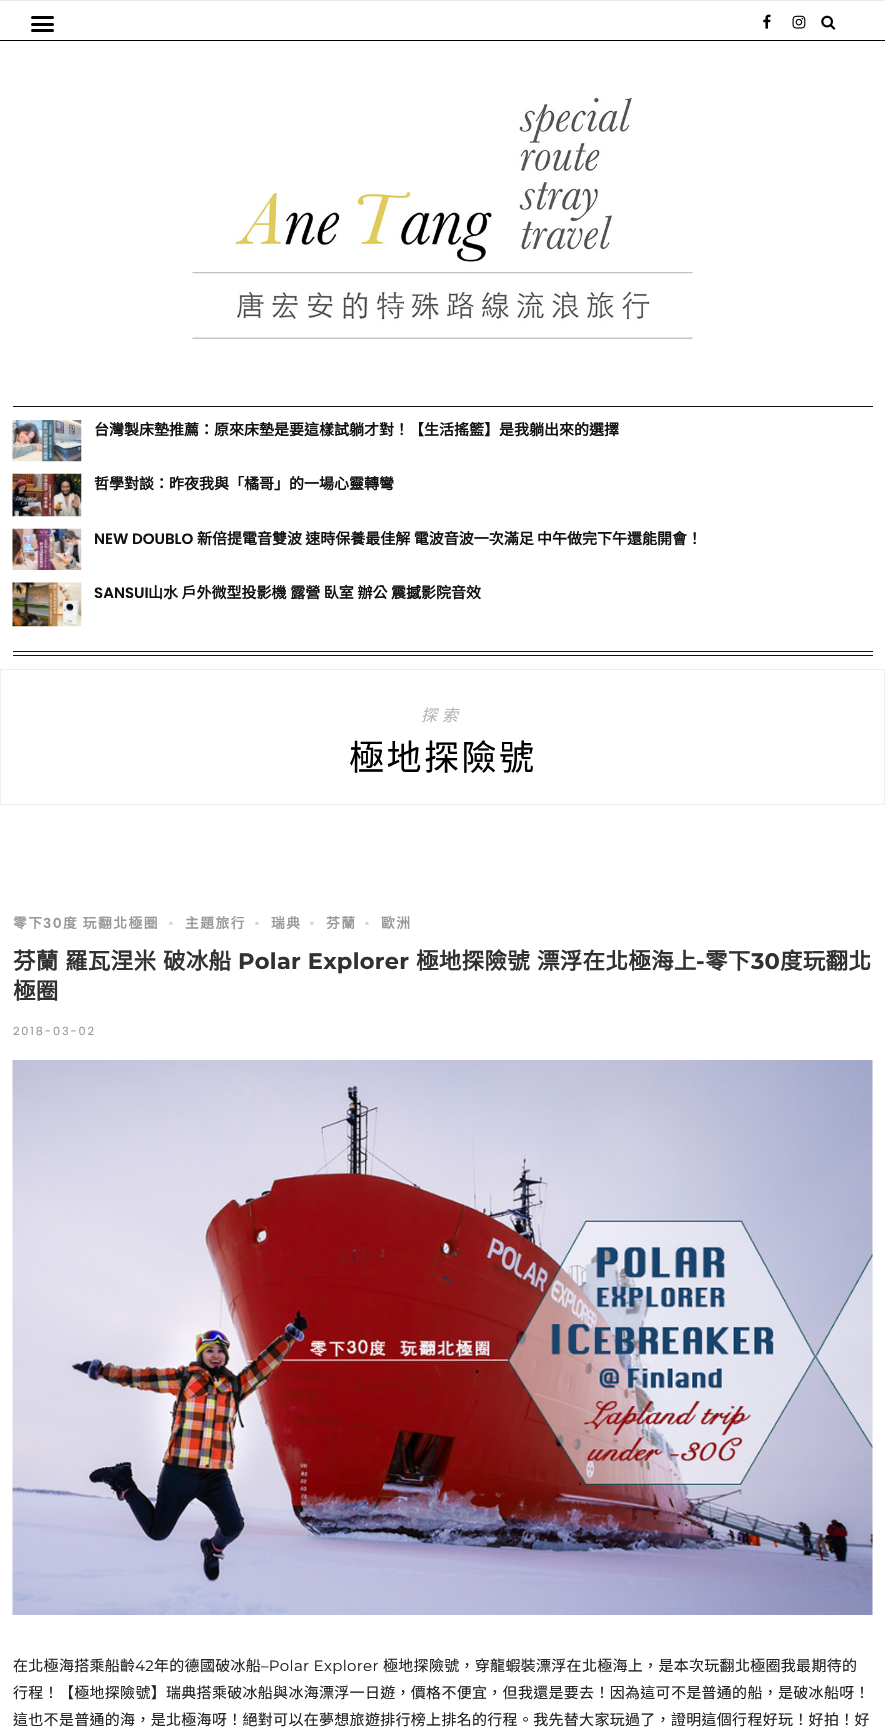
#include "include/core/SkBlurTypes.h"
#include "include/core/SkCanvas.h"
#include "include/core/SkData.h"
#include "include/core/SkFont.h"
#include "include/core/SkFontMgr.h"
#include "include/core/SkImage.h"
#include "include/core/SkMaskFilter.h"
#include "include/core/SkPaint.h"
#include "include/core/SkPathBuilder.h"
#include "include/core/SkTextBlob.h"
#include "include/effects/SkDashPathEffect.h"
#include "include/effects/SkGradientShader.h"
#include "include/utils/SkParsePath.h"

extern sk_sp<SkFontMgr> fontMgr;

void draw(SkCanvas* canvas) {
    SkPaint p;
    p.setAntiAlias(true);
    auto font = [&](const char* family, int weight, float size, bool italic = false) {
        SkFontStyle style(weight, SkFontStyle::kNormal_Width,
            italic ? SkFontStyle::kItalic_Slant : SkFontStyle::kUpright_Slant);
        SkFont result(fontMgr->matchFamilyStyle(family, style), size);
        result.setSubpixel(true);
        return result;
    };
    auto drawTracked = [&](const char* s, float x, float y, const SkFont& font, const SkPaint& ink, float letter, float word) {
        std::vector<SkGlyphID> glyphs(font.countText(s, strlen(s), SkTextEncoding::kUTF8));
        std::vector<float> xs(glyphs.size());
        font.textToGlyphs(s, strlen(s), SkTextEncoding::kUTF8, glyphs);
        font.getXPos(glyphs, xs, x);
        float extra = 0;
        for (size_t i = 0; i < glyphs.size(); i++) {
            xs[i] += extra;
            extra += letter + word * (glyphs[i] == font.unicharToGlyph(' '));
        }
        canvas->drawTextBlob(SkTextBlob::MakeFromPosHGlyphs(glyphs, xs, y, font), 0, 0, ink);
    };
    auto drawPhoto = [&](const char* path, float l, float t, float r, float b) {
        auto image = SkImages::DeferredFromEncodedData(SkData::MakeFromFileName(path));
        canvas->drawImageRect(image, SkRect::MakeLTRB(l, t, r, b), SkSamplingOptions());
    };
    canvas->clear(0xFFFFFFFF);
    p.setColor(0xFFEBEBEB);
    canvas->drawRect(SkRect::MakeLTRB(0, 0, 885, 1), p);
    p.setColor(0xFF000000);
    canvas->drawRect(SkRect::MakeLTRB(0, 40, 885, 41), p);
    canvas->drawRoundRect(SkRect::MakeLTRB(31, 16, 54, 19), 1.5f, 1.5f, p);
    canvas->drawRoundRect(SkRect::MakeLTRB(31, 23, 54, 26), 1.5f, 1.5f, p);
    canvas->drawRoundRect(SkRect::MakeLTRB(31, 29, 54, 32), 1.5f, 1.5f, p);
    drawPhoto("media/1.png", 763, 14, 771, 29);
    drawPhoto("media/2.png", 792, 15, 806, 29);
    drawPhoto("media/3.png", 821, 15, 836, 30);
    drawPhoto("media/4.png", 192, 97, 693, 339);
    {
        const struct { float l, t, r, b; SkColor color; } items[] = {
            {13, 406, 873, 407, 0xFF121212},
            {13, 651, 873, 652, 0xFF121212},
            {13, 655, 873, 656, 0xFF121212},
        };
        for (auto [l, t, r, b, color] : items) {
            p.setColor(color);
            canvas->drawRect(SkRect::MakeLTRB(l, t, r, b), p);
        }
    }
    drawPhoto("media/5.png", 12, 420, 82, 462);
    auto font1 = font("Noto Sans CJK TC", 700, 15);
    canvas->drawString("台灣製床墊推薦：原來床墊是要這樣試躺才對！【生活搖籃】是我躺出來的選擇", 94, 435, font1, p);
    drawPhoto("media/6.png", 12, 473, 82, 517);
    canvas->drawString("哲學對談：昨夜我與「橘哥」的一場心靈轉彎", 94, 489, font1, p);
    drawPhoto("media/7.png", 12, 528, 82, 570);
    auto font2 = font("Poppins", 600, 15);
    canvas->drawString("NEW DOUBLO", 94, 544, font2, p);
    canvas->drawString("新倍提電音雙波 速時保養最佳解 電波音波一次滿足 中午做完下午還能開會！", 197, 544, font1, p);
    drawPhoto("media/8.png", 12, 582, 82, 627);
    canvas->drawString("SANSUI", 94, 598, font2, p);
    drawTracked("山水 戶外微型投影機 露營 臥室 辦公 震撼影院音效", 148, 598, font1, p, 0, 0.25f);
    p.setStyle(SkPaint::kStroke_Style);
    p.setStrokeWidth(1);
    p.setColor(0xFFEEEEEE);
    canvas->drawRect(SkRect::MakeLTRB(0.5f, 669.5f, 884.5f, 804.5f), p);
    auto font3 = font("Noto Sans CJK TC", 400, 16, true);
    p.setStyle(SkPaint::kFill_Style);
    p.setColor(0xFFB5B5B5);
    drawTracked("探索", 421, 721, font3, p, 5, 0);
    auto font4 = font("Noto Sans CJK TC", 400, 35);
    p.setColor(0xFF000000);
    drawTracked("極地探險號", 349, 770, font4, p, 2.5f, 0);
    auto font5 = font("Noto Sans CJK TC", 700, 13.75f);
    p.setColor(0xFF999999);
    drawTracked("零下", 13, 928, font5, p, 1.5f, 0);
    auto font6 = font("Poppins", 600, 13.75f);
    drawTracked("30", 43, 928, font6, p, 1.5f, 0);
    drawTracked("度 玩翻北極圈", 63, 928, font5, p, 1.5f, 0);
    auto font7 = font("Poppins", 400, 13.75f);
    p.setColor(0xFFD5D5D5);
    canvas->drawString("•", 168, 928, font7, p);
    p.setColor(0xFF999999);
    drawTracked("主題旅行", 185, 928, font5, p, 1.5f, 0);
    p.setColor(0xFFD5D5D5);
    canvas->drawString("•", 254, 928, font7, p);
    p.setColor(0xFF999999);
    drawTracked("瑞典", 271, 928, font5, p, 1.5f, 0);
    p.setColor(0xFFD5D5D5);
    canvas->drawString("•", 309, 928, font7, p);
    p.setColor(0xFF999999);
    drawTracked("芬蘭", 326, 928, font5, p, 1.5f, 0);
    p.setColor(0xFFD5D5D5);
    canvas->drawString("•", 364, 928, font7, p);
    p.setColor(0xFF999999);
    drawTracked("歐洲", 381, 928, font5, p, 1.5f, 0);
    auto font8 = font("Noto Sans CJK TC", 700, 22.5f);
    p.setColor(0xFF313131);
    {
        const struct { const char* s; float x, y; } items[] = {
            {"芬蘭", 13, 969},
            {"羅瓦涅米", 65, 969},
            {"破冰船", 163, 969},
        };
        for (auto [s, x, y] : items) {
            drawTracked(s, x, y, font8, p, 0.3f, 0);
        }
    }
    auto font9 = font("Montserrat", 700, 22.5f);
    drawTracked("Polar Explorer", 238, 969, font9, p, 0.3f, 0);
    drawTracked("極地探險號", 416, 969, font8, p, 0.3f, 0);
    drawTracked("漂浮在北極海上", 537, 969, font8, p, 0.3f, 0);
    drawTracked("-", 696, 969, font9, p, 0.3f, 0);
    drawTracked("零下", 705, 969, font8, p, 0.3f, 0);
    drawTracked("30", 751, 969, font9, p, 0.3f, 0);
    drawTracked("度玩翻北", 780, 969, font8, p, 0.3f, 0);
    drawTracked("極圈", 13, 999, font8, p, 0.3f, 0);
    auto font10 = font("Poppins", 400, 11.25f);
    p.setColor(0xFF999999);
    drawTracked("2018-03-02", 13, 1035, font10, p, 1.9f, 0);
    drawPhoto("media/9.png", 12, 1060, 873, 1615);
    auto font11 = font("Noto Sans CJK TC", 400, 15);
    p.setColor(0xFF222222);
    drawTracked("在北極海搭乘船齡", 13, 1671, font11, p, 0.3f, 0);
    auto font12 = font("Montserrat", 400, 15);
    drawTracked("42", 135, 1671, font12, p, 0.3f, 0);
    drawTracked("年的德國破冰船", 154, 1671, font11, p, 0.3f, 0);
    drawTracked("–Polar Explorer", 261, 1671, font12, p, 0.3f, 0);
    {
        const struct { const char* s; float x, y; } items[] = {
            {"極地探險號，穿龍蝦裝漂浮在北極海上，是本次玩翻北極圈我最期待的", 383, 1671},
            {"行程！【極地探險號】瑞典搭乘破冰船與冰海漂浮一日遊，價格不便宜，但我還是要去！因為這可不是普通的船，是破冰船呀！", 13, 1698},
            {"這也不是普通的海，是北極海呀！絕對可以在夢想旅遊排行榜上排名的行程。我先替大家玩過了，證明這個行程好玩！好拍！好", 13, 1725},
        };
        for (auto [s, x, y] : items) {
            drawTracked(s, x, y, font11, p, 0.3f, 0);
        }
    }
}
